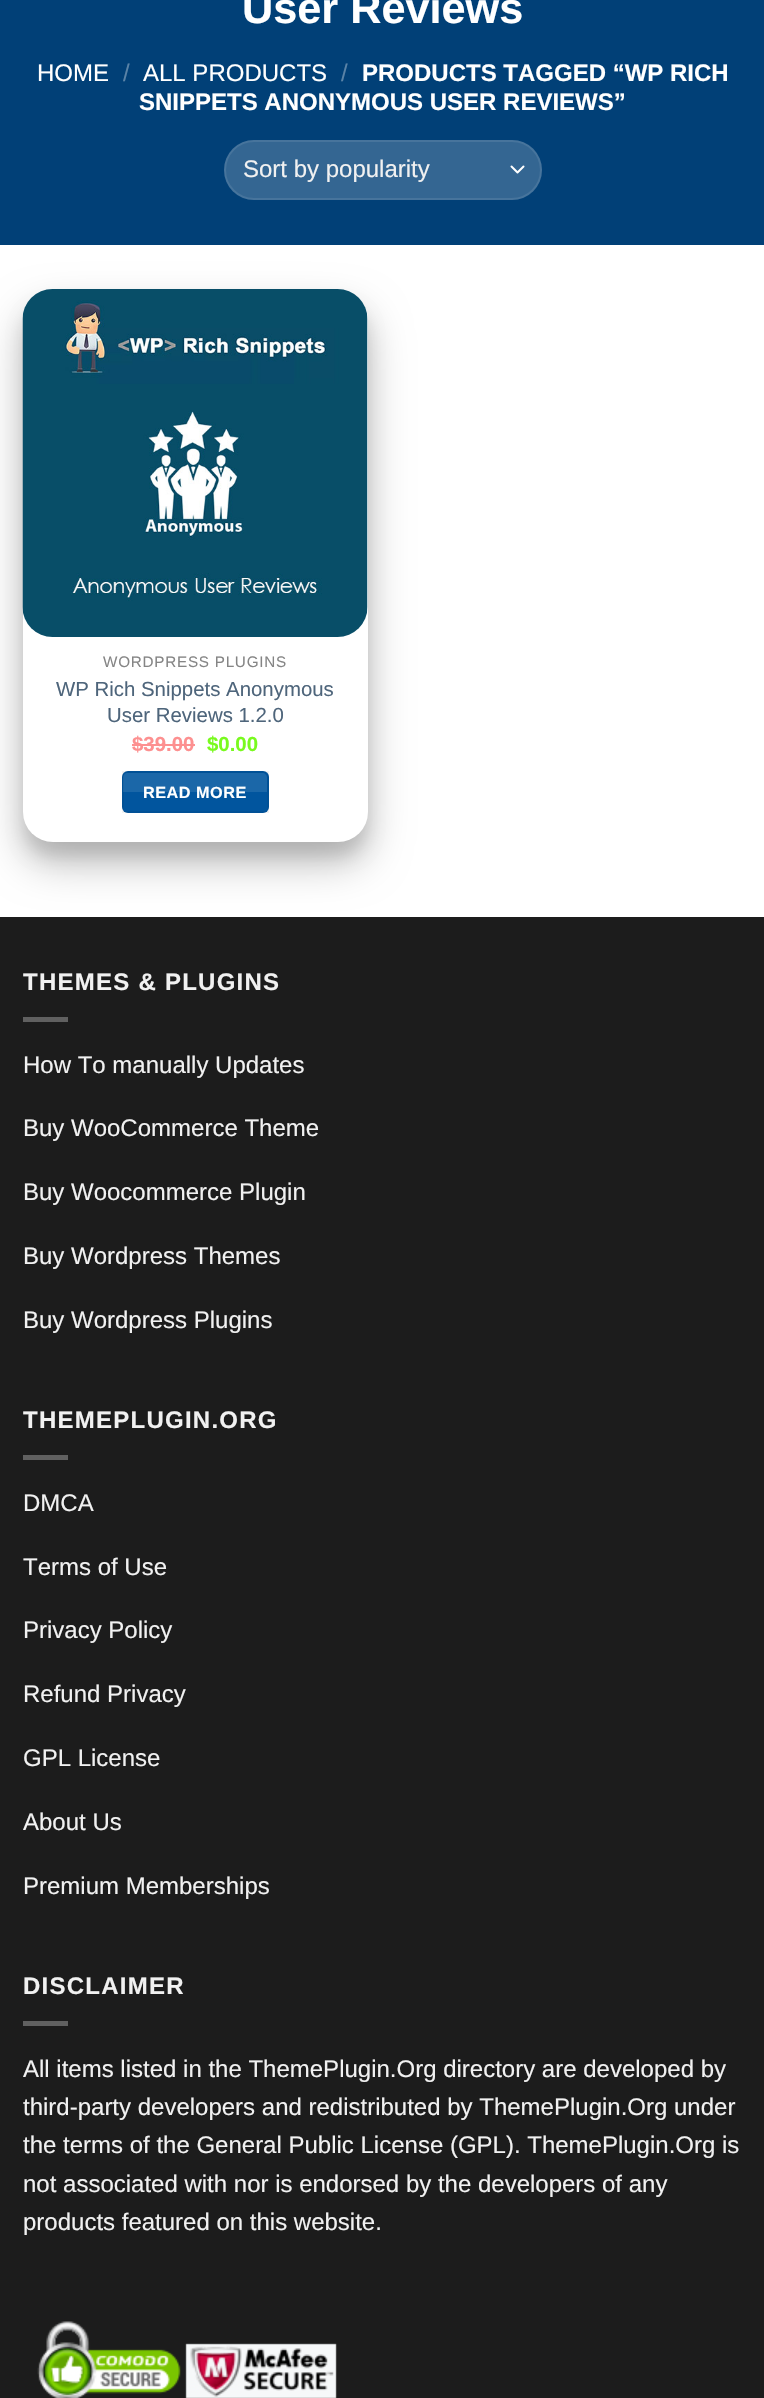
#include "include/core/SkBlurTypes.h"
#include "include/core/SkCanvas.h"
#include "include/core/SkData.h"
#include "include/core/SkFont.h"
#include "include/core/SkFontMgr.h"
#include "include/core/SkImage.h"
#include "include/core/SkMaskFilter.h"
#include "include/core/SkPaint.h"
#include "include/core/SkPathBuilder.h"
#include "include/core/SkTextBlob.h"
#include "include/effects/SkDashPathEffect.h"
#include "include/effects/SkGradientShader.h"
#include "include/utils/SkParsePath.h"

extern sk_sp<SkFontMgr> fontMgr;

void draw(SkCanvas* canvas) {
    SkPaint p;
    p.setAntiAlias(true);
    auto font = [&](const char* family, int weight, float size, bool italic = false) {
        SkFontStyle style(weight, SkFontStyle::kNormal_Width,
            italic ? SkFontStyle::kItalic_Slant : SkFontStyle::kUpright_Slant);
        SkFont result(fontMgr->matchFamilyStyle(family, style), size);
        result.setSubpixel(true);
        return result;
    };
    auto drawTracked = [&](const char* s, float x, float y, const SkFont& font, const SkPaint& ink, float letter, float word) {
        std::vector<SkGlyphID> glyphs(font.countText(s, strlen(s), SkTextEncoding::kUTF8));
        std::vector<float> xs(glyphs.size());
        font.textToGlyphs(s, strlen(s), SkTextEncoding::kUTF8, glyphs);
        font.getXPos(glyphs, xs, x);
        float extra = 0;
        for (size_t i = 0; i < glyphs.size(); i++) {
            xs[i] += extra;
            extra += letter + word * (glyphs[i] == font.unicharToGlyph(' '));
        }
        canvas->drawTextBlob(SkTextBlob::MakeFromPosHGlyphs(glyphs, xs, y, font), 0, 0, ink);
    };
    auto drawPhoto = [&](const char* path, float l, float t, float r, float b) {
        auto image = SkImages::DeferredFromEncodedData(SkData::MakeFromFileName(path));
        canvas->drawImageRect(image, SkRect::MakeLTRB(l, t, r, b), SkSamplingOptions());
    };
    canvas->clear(0xFFFFFFFF);
    p.setColor(0xFF014077);
    canvas->drawRect(SkRect::MakeLTRB(0, 0, 764, 245), p);
    auto font1 = font("Liberation Sans", 700, 43.25f);
    p.setColor(0xFFFFFFFF);
    canvas->drawString("User Reviews", 242, 23, font1, p);
    auto font2 = font("Liberation Sans", 400, 24);
    canvas->drawString("HOME", 37, 81, font2, p);
    p.setColor(0xFF5A83A7);
    canvas->drawString("/", 123, 81, font2, p);
    p.setColor(0xFFFFFFFF);
    canvas->drawString("ALL PRODUCTS", 143, 81, font2, p);
    p.setColor(0xFF5A83A7);
    canvas->drawString("/", 341, 81, font2, p);
    auto font3 = font("Liberation Sans", 700, 24);
    p.setColor(0xFFFFFFFF);
    canvas->drawString("PRODUCTS TAGGED “WP RICH", 362, 81, font3, p);
    canvas->drawString("SNIPPETS ANONYMOUS USER REVIEWS”", 139, 110, font3, p);
    p.setColor(0xFF346692);
    canvas->drawRoundRect(SkRect::MakeLTRB(224, 140, 542, 200), 30, 30, p);
    p.setStyle(SkPaint::kStroke_Style);
    p.setStrokeWidth(2);
    p.setStrokeCap(SkPaint::kRound_Cap);
    p.setStrokeJoin(SkPaint::kRound_Join);
    p.setColor(0xFFFFFFFF);
    canvas->drawPath(SkPathBuilder().moveTo(511.5f, 166.5f).lineTo(517.5f, 172.5f).lineTo(523.5f, 166.5f).detach(), p);
    p.setStrokeCap(SkPaint::kButt_Cap);
    p.setStrokeJoin(SkPaint::kMiter_Join);
    p.setColor(0x17FFFFFF);
    canvas->drawRoundRect(SkRect::MakeLTRB(225, 141, 541, 199), 29, 29, p);
    p.setStyle(SkPaint::kFill_Style);
    p.setColor(0xFFF1F1F1);
    canvas->drawString("Sort by popularity", 243, 177, font2, p);
    p.setColor(0x1A000000);
    p.setMaskFilter(SkMaskFilter::MakeBlur(kNormal_SkBlurStyle, 7.5f));
    canvas->drawRoundRect(SkRect::MakeLTRB(23, 305, 368, 857), 30, 30, p);
    p.setMaskFilter(nullptr);
    p.setColor(0x40000000);
    p.setMaskFilter(SkMaskFilter::MakeBlur(kNormal_SkBlurStyle, 21));
    canvas->drawRoundRect(SkRect::MakeLTRB(23, 311, 368, 863), 30, 30, p);
    p.setMaskFilter(nullptr);
    p.setColor(0xFFFFFFFF);
    canvas->drawRoundRect(SkRect::MakeLTRB(23, 290, 368, 842), 30, 30, p);
    drawPhoto("media/1.png", 22, 289, 368, 637);
    auto font4 = font("Liberation Sans", 400, 15.25f);
    p.setColor(0xFF858585);
    drawTracked("WORDPRESS PLUGINS", 103, 667, font4, p, 0.75f, 0);
    auto font5 = font("Liberation Sans", 400, 20.4f);
    p.setColor(0xFF4E657B);
    canvas->drawString("WP Rich Snippets Anonymous", 56, 696, font5, p);
    canvas->drawString("User Reviews 1.2.0", 107, 722, font5, p);
    auto font6 = font("Liberation Sans", 700, 20.4f);
    p.setColor(0xFFFD9090);
    canvas->drawString("$39.00", 132, 751, font6, p);
    canvas->drawRect(SkRect::MakeLTRB(132, 744, 195, 746), p);
    p.setColor(0xFF79FA1E);
    canvas->drawString("$0.00", 207, 751, font6, p);
    p.setColor(0xFF01559E);
    canvas->drawRoundRect(SkRect::MakeLTRB(122, 771, 269, 813), 6, 6, p);
    p.setStyle(SkPaint::kStroke_Style);
    p.setColor(0x0D000000);
    canvas->drawRect(SkRect::MakeLTRB(123, 772, 268, 812), p);
    p.setStyle(SkPaint::kFill_Style);
    p.setColor(0x1AFFFFFF);
    canvas->drawPath(SkPathBuilder().moveTo(128, 773).lineTo(262, 773).cubicTo(265, 773, 267, 775, 267, 778).lineTo(267, 792).lineTo(123, 792).lineTo(123, 778).cubicTo(123, 775, 125, 773, 128, 773).close().detach(), p);
    auto font7 = font("Liberation Sans", 700, 16.25f);
    p.setColor(0xFFFFFFFF);
    drawTracked("READ MORE", 143, 798, font7, p, 0.5f, 0);
    p.setColor(0xFF1C1C1C);
    canvas->drawRect(SkRect::MakeLTRB(0, 917, 764, 2398), p);
    p.setColor(0xFFF1F1F1);
    drawTracked("THEMES & PLUGINS", 23, 990, font3, p, 1.25f, 0);
    p.setColor(0xFF606060);
    canvas->drawRect(SkRect::MakeLTRB(23, 1017, 68, 1022), p);
    p.setColor(0xFFF1F1F1);
    {
        const struct { const char* s; float x, y; } items[] = {
            {"How To manually Updates", 23, 1073},
            {"Buy WooCommerce Theme", 23, 1136},
            {"Buy Woocommerce Plugin", 23, 1200},
            {"Buy Wordpress Themes", 23, 1264},
            {"Buy Wordpress Plugins", 23, 1328},
        };
        for (auto [s, x, y] : items) {
            canvas->drawString(s, x, y, font2, p);
        }
    }
    drawTracked("THEMEPLUGIN.ORG", 23, 1428, font3, p, 1.25f, 0);
    p.setColor(0xFF606060);
    canvas->drawRect(SkRect::MakeLTRB(23, 1455, 68, 1460), p);
    p.setColor(0xFFF1F1F1);
    {
        const struct { const char* s; float x, y; } items[] = {
            {"DMCA", 23, 1511},
            {"Terms of Use", 23, 1575},
            {"Privacy Policy", 23, 1638},
            {"Refund Privacy", 23, 1702},
            {"GPL License", 23, 1766},
            {"About Us", 23, 1830},
            {"Premium Memberships", 23, 1894},
        };
        for (auto [s, x, y] : items) {
            canvas->drawString(s, x, y, font2, p);
        }
    }
    drawTracked("DISCLAIMER", 23, 1994, font3, p, 1.25f, 0);
    p.setColor(0xFF606060);
    canvas->drawRect(SkRect::MakeLTRB(23, 2021, 68, 2026), p);
    p.setColor(0xFFF1F1F1);
    {
        const struct { const char* s; float x, y; } items[] = {
            {"All items listed in the ThemePlugin.Org directory are developed by", 23, 2077},
            {"third-party developers and redistributed by ThemePlugin.Org under", 23, 2115},
            {"the terms of the General Public License (GPL). ThemePlugin.Org is", 23, 2153},
            {"not associated with nor is endorsed by the developers of any", 23, 2192},
            {"products featured on this website.", 23, 2230},
        };
        for (auto [s, x, y] : items) {
            canvas->drawString(s, x, y, font2, p);
        }
    }
    drawPhoto("media/2.png", 37, 2321, 337, 2398);
}
